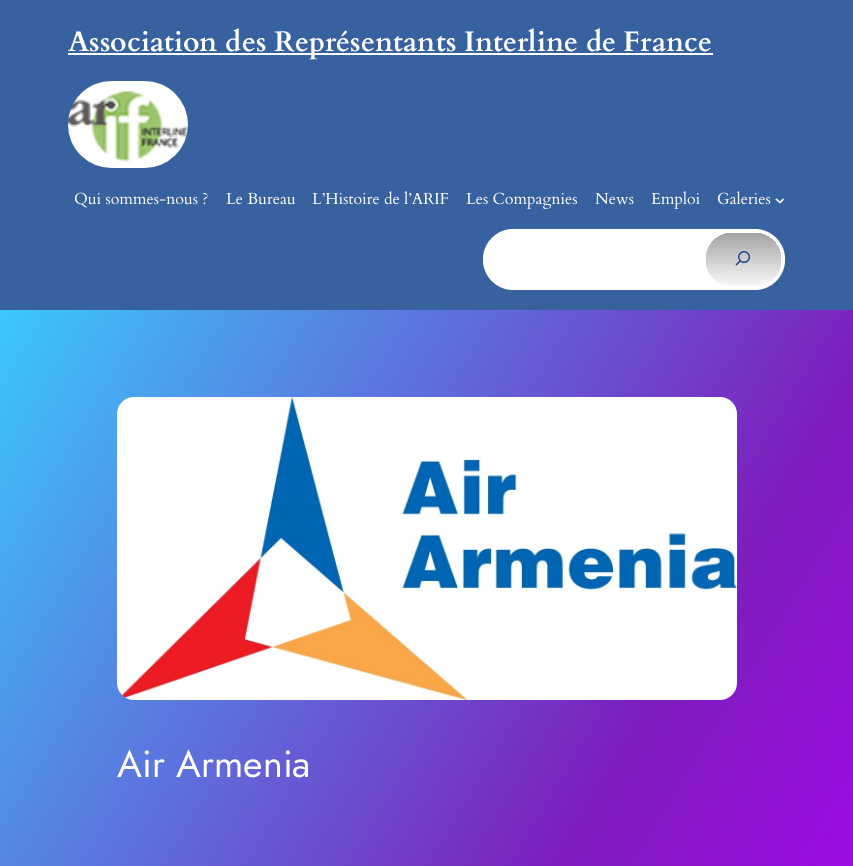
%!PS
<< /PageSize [853 866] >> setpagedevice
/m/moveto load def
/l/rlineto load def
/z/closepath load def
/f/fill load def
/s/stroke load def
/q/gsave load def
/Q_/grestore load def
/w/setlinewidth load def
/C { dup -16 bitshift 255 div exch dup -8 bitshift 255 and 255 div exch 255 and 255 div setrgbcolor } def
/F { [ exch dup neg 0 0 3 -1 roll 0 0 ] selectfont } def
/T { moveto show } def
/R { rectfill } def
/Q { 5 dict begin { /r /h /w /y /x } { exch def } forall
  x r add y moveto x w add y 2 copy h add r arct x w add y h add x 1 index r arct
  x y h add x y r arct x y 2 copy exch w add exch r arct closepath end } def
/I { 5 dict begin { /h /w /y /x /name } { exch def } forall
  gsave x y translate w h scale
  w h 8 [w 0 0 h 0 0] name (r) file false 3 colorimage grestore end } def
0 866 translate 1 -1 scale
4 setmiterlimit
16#FFFFFF C
0 0 853 866 R
q 0 310 m 853 0 l 0 556 l -853 0 l z clip newpath
<< /ShadingType 2 /ColorSpace /DeviceRGB /Coords [-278 463 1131 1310] /Extend [true true] /Function << /FunctionType 3 /Domain [0 1] /Functions [<< /FunctionType 2 /Domain [0 1] /C0 [.231 .796 1] /C1 [.231 .796 1] /N 1 >> << /FunctionType 2 /Domain [0 1] /C0 [.231 .796 1] /C1 [.494 .118 .741] /N 1 >> << /FunctionType 2 /Domain [0 1] /C0 [.494 .118 .741] /C1 [.706 0 1] /N 1 >> << /FunctionType 2 /Domain [0 1] /C0 [.706 0 1] /C1 [.792 .525 .267] /N 1 >>] /Bounds [.09 .56 .82] /Encode [0 1 0 1 0 1 0 1] >> >> shfill Q_
16#38629F C
0 0 853 310 R
16#FFFFFF C
68 53 645 2 R
/Cardo-Bold 28.4 F
(Association des Représentants Interline de France) 68 51 T
(1.rgb) 68 81 120 87 I
(2.rgb) 74 192 134 16 I
(3.rgb) 226 192 70 13 I
(4.rgb) 312 191 136 14 I
(5.rgb) 466 192 111 17 I
(6.rgb) 595 193 39 12 I
(7.rgb) 651 191 49 18 I
(8.rgb) 717 191 54 14 I
1.2 w
776 199 m 4 3.5 l 3.5 -3.5 l s
483 229 302 61 30.5 Q f
q 706 233 75 53 26.5 Q clip newpath
<< /ShadingType 2 /ColorSpace /DeviceRGB /Coords [744 233 744 286] /Extend [true true] /Function << /FunctionType 2 /Domain [0 1] /C0 [.643 .643 .643] /C1 [.976 .976 .976] /N 1 >> >> shfill Q_
(9.rgb) 735 251 16 15 I
(10.rgb) 117 397 620 303 I
/Jost-Regular 37.75 F
(Air Armenia) 117 777 T
showpage
